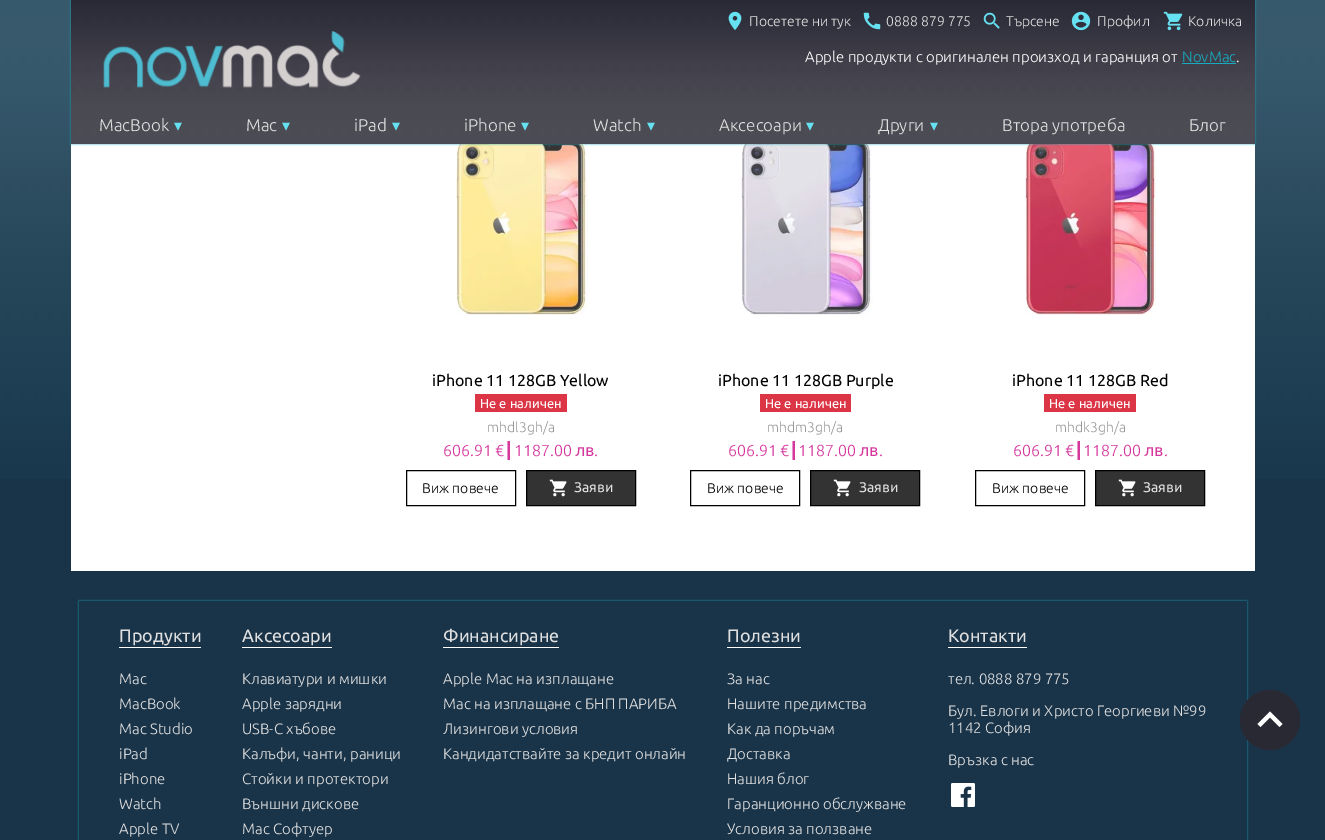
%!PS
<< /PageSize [1325 840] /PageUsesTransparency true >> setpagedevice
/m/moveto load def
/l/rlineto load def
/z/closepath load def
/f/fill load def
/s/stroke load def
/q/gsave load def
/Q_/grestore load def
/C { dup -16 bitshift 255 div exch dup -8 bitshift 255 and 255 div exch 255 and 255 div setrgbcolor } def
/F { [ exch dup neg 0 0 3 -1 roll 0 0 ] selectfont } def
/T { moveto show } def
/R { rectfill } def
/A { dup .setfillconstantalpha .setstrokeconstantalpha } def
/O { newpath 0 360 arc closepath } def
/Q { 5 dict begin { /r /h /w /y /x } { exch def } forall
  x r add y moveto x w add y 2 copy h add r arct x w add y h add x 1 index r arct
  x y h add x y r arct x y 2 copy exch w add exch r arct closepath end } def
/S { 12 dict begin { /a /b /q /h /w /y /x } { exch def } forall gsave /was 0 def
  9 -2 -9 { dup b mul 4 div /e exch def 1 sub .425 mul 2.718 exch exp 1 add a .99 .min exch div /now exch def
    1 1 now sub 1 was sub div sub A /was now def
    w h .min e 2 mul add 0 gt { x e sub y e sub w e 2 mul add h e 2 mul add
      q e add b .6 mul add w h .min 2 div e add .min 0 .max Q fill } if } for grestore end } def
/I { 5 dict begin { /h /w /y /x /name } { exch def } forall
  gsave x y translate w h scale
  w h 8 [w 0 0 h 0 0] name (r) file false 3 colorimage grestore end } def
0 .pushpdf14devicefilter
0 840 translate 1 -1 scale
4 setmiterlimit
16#193348 C
0 0 1325 840 R
(1.rgb) 0 0 1325 479 I
16#FFFFFF C
71 144 1184 427 R
(9.rgb) 456 144 132 171 I
(11.rgb) 741 144 132 171 I
(12.rgb) 1025 144 132 171 I
16#18AABE C
71 0 1184 144 0 1 1 S
(2.rgb) 71 0 1184 144 I
(3.rgb) 103 31 258 57 I
(4.rgb) 728 11 14 19 I
/Ubuntu-Light 14 F
16#E0E0E0 C
(Посетете ни тук) 749 26 T
(5.rgb) 863 12 18 18 I
(0888 879 775) 886 26 T
(6.rgb) 983 12 17 17 I
(Търсене) 1006 26 T
(7.rgb) 1071 11 20 20 I
(Профил) 1097 26 T
(8.rgb) 1163 11 20 20 I
(Количка) 1188 26 T
/Ubuntu-Light 15 F
16#FFFFFF C
(Apple продукти с оригинален произход и гаранция от) 805 62 T
16#18AABE C
(NovMac) 1182 62 T
16#FFFFFF C
(.) 1236 62 T
16#18AABE C
1182 63 54 1 R
/Ubuntu-Light 17 F
16#E0E0E0 C
(MacBook) 99 131 T
/DejaVuSans-Regular 16 F
16#66E1F2 C
(▾) 174 131 T
/Ubuntu-Light 17 F
16#E0E0E0 C
(Mac) 246 131 T
/DejaVuSans-Regular 16 F
16#66E1F2 C
(▾) 282 131 T
/Ubuntu-Light 17 F
16#E0E0E0 C
(iPad) 354 131 T
/DejaVuSans-Regular 16 F
16#66E1F2 C
(▾) 392 131 T
/Ubuntu-Light 17 F
16#E0E0E0 C
(iPhone) 464 131 T
/DejaVuSans-Regular 16 F
16#66E1F2 C
(▾) 521 131 T
/Ubuntu-Light 17 F
16#E0E0E0 C
(Watch) 593 131 T
/DejaVuSans-Regular 16 F
16#66E1F2 C
(▾) 647 131 T
/Ubuntu-Light 17 F
16#E0E0E0 C
(Аксесоари) 719 131 T
/DejaVuSans-Regular 16 F
16#66E1F2 C
(▾) 806 131 T
/Ubuntu-Light 17 F
16#E0E0E0 C
(Други) 878 131 T
/DejaVuSans-Regular 16 F
16#66E1F2 C
(▾) 930 131 T
/Ubuntu-Light 17 F
16#E0E0E0 C
(Втора употреба) 1002 131 T
(Блог) 1189 131 T
/Ubuntu-Regular 16 F
16#000000 C
(iPhone 11 128GB Yellow) 432 386 T
16#DC3545 C
475 394 92 18 R
/Ubuntu-Regular 13 F
16#FFFFFF C
(Не е наличен) 480 408 T
/Ubuntu-Light 14 F
16#999999 C
(mhdl3gh/a) 487 432 T
/Ubuntu-Light 16 F
16#D5379D C
443 456 m -1 0 32 (606.91 €) widthshow
/DejaVuSans-Regular 16 F
(┃) 504 456 T
/Ubuntu-Light 16 F
(1187.00) 514 456 T
/DejaVuSans-Regular 16 F
(лв) 575 456 T
/Ubuntu-Light 16 F
(.) 594 456 T
16#000000 C
406.5 470.5 109 35 rectstroke
/Ubuntu-Light 14 F
(Виж повече) 422 493 T
16#333333 C
526.5 470.5 m 109 0 l 0 35 l -109 0 l z q f Q_
16#000000 C
s
(10.rgb) 549 479 18 18 I
/Ubuntu-Regular 14 F
16#E0E0E0 C
(Заяви) 574 492 T
/Ubuntu-Regular 16 F
16#000000 C
(iPhone 11 128GB Purple) 718 386 T
16#DC3545 C
760 394 91 18 R
/Ubuntu-Regular 13 F
16#FFFFFF C
(Не е наличен) 765 408 T
/Ubuntu-Light 14 F
16#999999 C
(mhdm3gh/a) 767 432 T
/Ubuntu-Light 16 F
16#D5379D C
728 456 m -1 0 32 (606.91 €) widthshow
/DejaVuSans-Regular 16 F
(┃) 789 456 T
/Ubuntu-Light 16 F
(1187.00) 798 456 T
/DejaVuSans-Regular 16 F
(лв) 859 456 T
/Ubuntu-Light 16 F
(.) 879 456 T
16#000000 C
690.5 470.5 109 35 rectstroke
/Ubuntu-Light 14 F
(Виж повече) 707 493 T
16#333333 C
810.5 470.5 m 109 0 l 0 35 l -109 0 l z q f Q_
16#000000 C
s
(10.rgb) 833 479 18 18 I
/Ubuntu-Regular 14 F
16#E0E0E0 C
(Заяви) 859 492 T
/Ubuntu-Regular 16 F
16#000000 C
(iPhone 11 128GB Red) 1012 386 T
16#DC3545 C
1044 394 92 18 R
/Ubuntu-Regular 13 F
16#FFFFFF C
(Не е наличен) 1049 408 T
/Ubuntu-Light 14 F
16#999999 C
(mhdk3gh/a) 1055 432 T
/Ubuntu-Light 16 F
16#D5379D C
1013 456 m -1 0 32 (606.91 €) widthshow
/DejaVuSans-Regular 16 F
(┃) 1074 456 T
/Ubuntu-Light 16 F
(1187.00) 1083 456 T
/DejaVuSans-Regular 16 F
(лв) 1144 456 T
/Ubuntu-Light 16 F
(.) 1164 456 T
16#000000 C
975.5 470.5 109 35 rectstroke
/Ubuntu-Light 14 F
(Виж повече) 992 493 T
16#333333 C
1095.5 470.5 m 109 0 l 0 35 l -109 0 l z q f Q_
16#000000 C
s
(10.rgb) 1118 479 18 18 I
/Ubuntu-Regular 14 F
16#E0E0E0 C
(Заяви) 1143 492 T
q
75 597 m 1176 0 l 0 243 l -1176 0 l z 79 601 m 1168 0 l 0 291 l -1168 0 l z eoclip newpath
16#18AABE C
79 601 1168 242 0 1 1 S
Q_
/Ubuntu-Regular 18 F
(Продукти) 119 642 T
16#FFFFFF C
119 647 82 1 R
/Ubuntu-Light 15 F
16#E0E0E0 C
(Mac) 119 684 T
(MacBook) 119 709 T
(Mac Studio) 119 734 T
(iPad) 119 759 T
(iPhone) 119 784 T
(Watch) 119 809 T
(Apple TV) 119 834 T
/Ubuntu-Regular 18 F
(Аксесоари) 242 642 T
16#FFFFFF C
242 647 90 1 R
/Ubuntu-Light 15 F
16#E0E0E0 C
(Клавиатури и мишки) 242 684 T
(Apple зарядни) 242 709 T
(USB-C хъбове) 242 734 T
(Калъфи, чанти, раници) 242 759 T
(Стойки и протектори) 242 784 T
(Външни дискове) 242 809 T
(Mac Софтуер) 242 834 T
/Ubuntu-Regular 18 F
(Финансиране) 443 642 T
16#FFFFFF C
443 647 116 1 R
/Ubuntu-Light 15 F
16#E0E0E0 C
(Apple Mac на изплащане) 443 684 T
(Mac на изплащане с БНП ПАРИБА) 443 709 T
(Лизингови условия) 443 734 T
(Кандидатствайте за кредит онлайн) 443 759 T
/Ubuntu-Regular 18 F
(Полезни) 727 642 T
16#FFFFFF C
727 647 74 1 R
/Ubuntu-Light 15 F
16#E0E0E0 C
(За нас) 727 684 T
(Нашите предимства) 727 709 T
(Как да поръчам) 727 734 T
(Доставка) 727 759 T
(Нашия блог) 727 784 T
(Гаранционно обслужване) 727 809 T
(Условия за ползване) 727 834 T
/Ubuntu-Regular 18 F
(Контакти) 948 642 T
16#FFFFFF C
948 647 79 1 R
/Ubuntu-Light 15 F
16#E0E0E0 C
(тел. 0888 879 775) 948 684 T
(Бул. Евлоги и Христо Георгиеви №99) 948 716 T
(1142 София) 948 733 T
(Връзка с нас) 948 765 T
(13.rgb) 951 783 24 24 I
16#292933 C
1270 720 30 O f
16#FFFFFF C
1260.5 727 m -3 -3 l 12.5 -12.5 l 12.5 12.5 l -3 3 l -9.5 -9.5 l z f
.poppdf14devicefilter showpage
